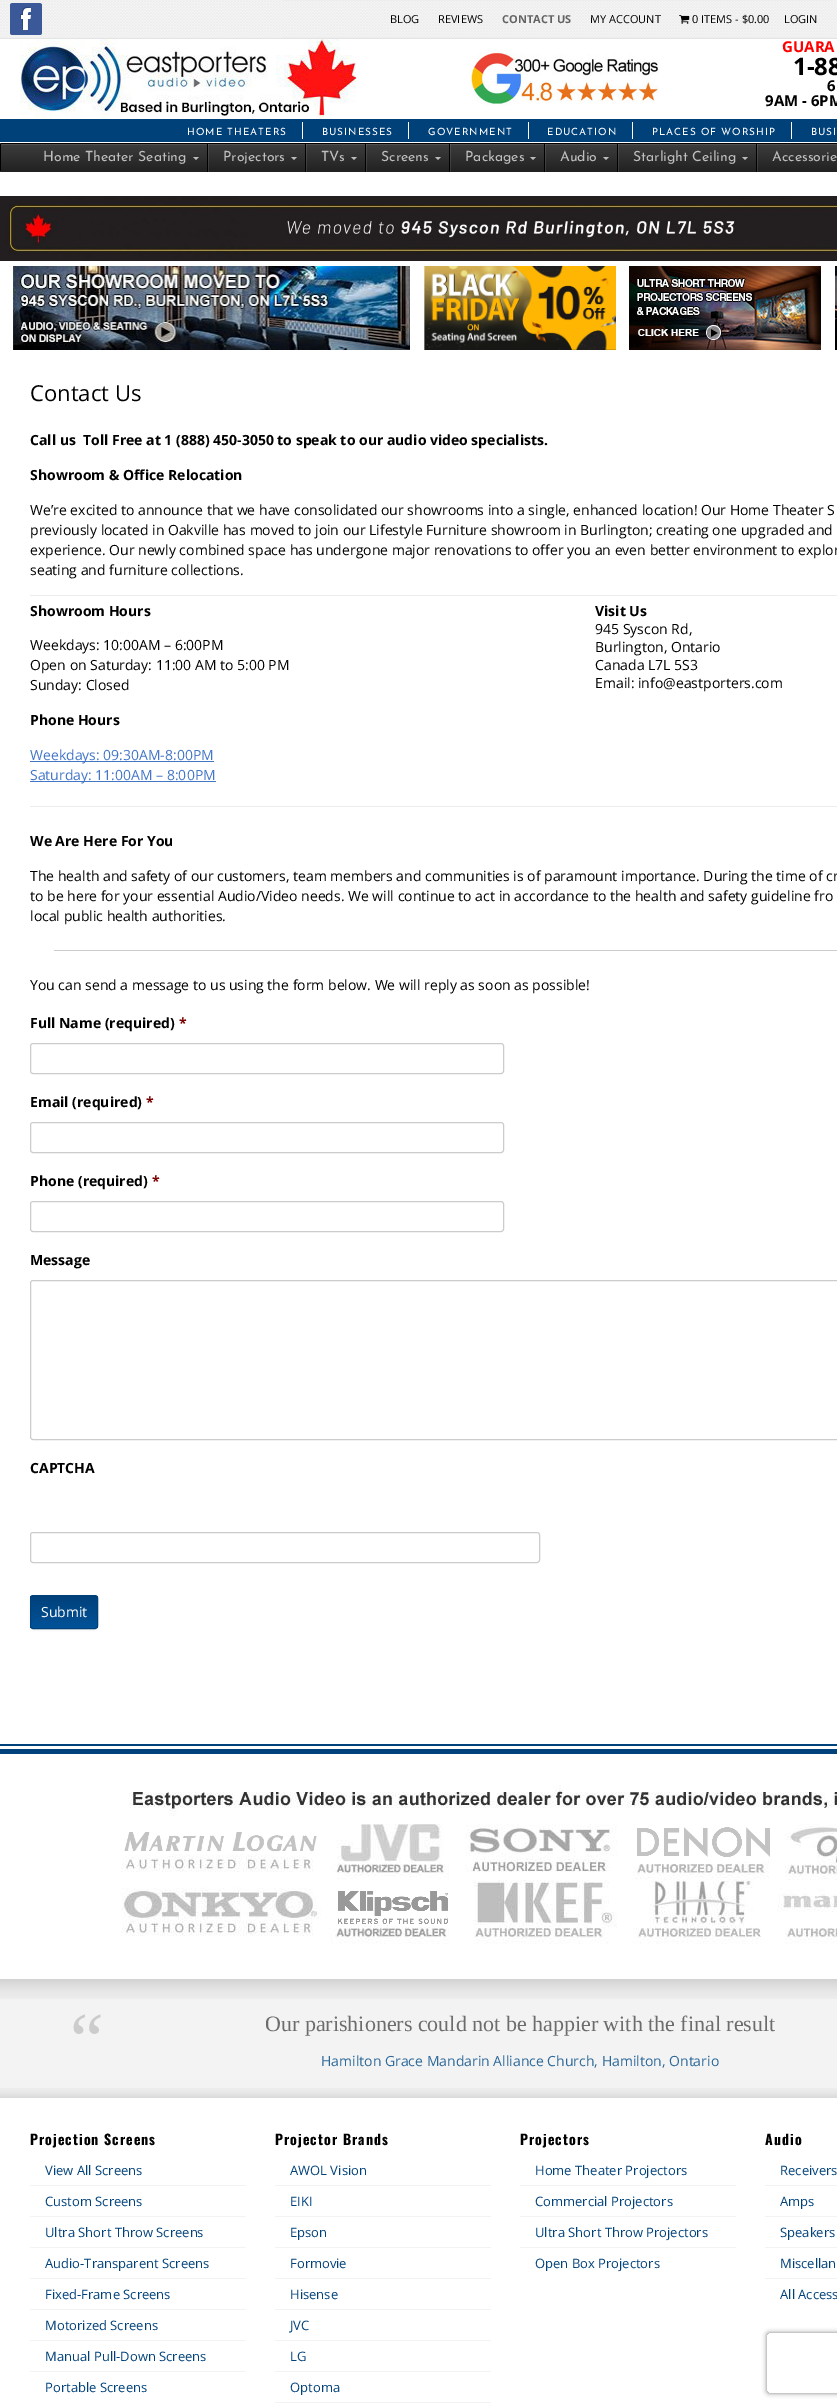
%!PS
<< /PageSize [837 2407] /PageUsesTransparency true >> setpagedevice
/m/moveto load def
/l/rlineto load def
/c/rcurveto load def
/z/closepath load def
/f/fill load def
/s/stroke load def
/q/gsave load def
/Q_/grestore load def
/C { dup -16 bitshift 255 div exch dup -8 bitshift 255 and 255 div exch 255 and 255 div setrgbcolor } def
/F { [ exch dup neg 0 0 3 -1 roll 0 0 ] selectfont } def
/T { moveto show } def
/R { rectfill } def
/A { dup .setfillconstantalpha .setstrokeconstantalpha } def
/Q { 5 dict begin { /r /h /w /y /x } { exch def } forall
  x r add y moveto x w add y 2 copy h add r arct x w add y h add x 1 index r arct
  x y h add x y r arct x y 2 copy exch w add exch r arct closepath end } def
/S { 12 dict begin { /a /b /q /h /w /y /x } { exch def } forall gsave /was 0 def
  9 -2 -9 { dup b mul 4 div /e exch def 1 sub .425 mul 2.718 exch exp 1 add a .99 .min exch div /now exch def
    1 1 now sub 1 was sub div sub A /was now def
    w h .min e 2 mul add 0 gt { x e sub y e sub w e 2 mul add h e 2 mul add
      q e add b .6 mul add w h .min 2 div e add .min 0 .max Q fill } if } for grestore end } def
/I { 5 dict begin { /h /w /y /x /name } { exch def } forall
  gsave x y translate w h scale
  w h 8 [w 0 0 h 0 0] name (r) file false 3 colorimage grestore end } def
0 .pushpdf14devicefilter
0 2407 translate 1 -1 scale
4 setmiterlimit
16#FFFFFF C
0 0 837 2407 R
(1.rgb) 0 0 837 38 I
16#E4E4E4 C
0 38 837 1 R
(2.rgb) 10 3 32 32 I
16#EDEDED C
283 0 550 1 R
283 37 550 1 R
/OpenSans-Regular 11 F
16#000000 C
(BLOG) 390 23 T
(REVIEWS) 438 23 T
/OpenSans-Bold 11 F
16#636363 C
(CONTACT US) 502 23 T
/OpenSans-Regular 11 F
16#000000 C
(MY ACCOUNT) 590 23 T
(3.rgb) 679 15 11 9 I
(0 ITEMS - $0.00) 692 23 T
(LOGIN) 784 23 T
(4.rgb) 20 39 338 80 I
(5.rgb) 469 50 190 56 I
/OpenSans-Bold 15 F
16#FF0000 C
(GUARA) 782 52 T
/OpenSans-Bold 24 F
16#000000 C
(1-88) 793 75 T
/OpenSans-Bold 15 F
(6) 827 91 T
(9AM - 6PM) 765 106 T
16#00417A C
0 119 837 23 R
16#FFFFFF C
302 122 1 17 R
/JosefinSans-Regular 10 F
187 135 m 1 0 (HOME THEATERS) ashow
408 122 1 17 R
322 135 m 1 0 (BUSINESSES) ashow
528 122 1 17 R
428 135 m 1 0 (GOVERNMENT) ashow
632 122 1 17 R
547 135 m 1 0 (EDUCATION) ashow
791 122 1 17 R
652 135 m 1 0 (PLACES OF WORSHIP) ashow
811 135 m 1 0 (BUSI) ashow
16#333333 C
0 143 2 29 R
q 2 144 m 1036 0 l 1 0 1 0 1 1 c 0 25 l 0 1 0 2 -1 2 c -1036 0 l -1 0 -1 -1 -1 -2 c 0 -25 l 0 -1 0 -1 1 -1 c z clip newpath
<< /ShadingType 2 /ColorSpace /DeviceRGB /Coords [520 144 520 172] /Extend [true true] /Function << /FunctionType 2 /Domain [0 1] /C0 [.239 .239 .239] /C1 [.129 .129 .129] /N 1 >> >> shfill Q_
16#505050 C
2 145 m 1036 0 l 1 0 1 0 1 1 c 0 -1 l -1 -1 l -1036 0 l -1 1 l 0 1 l 0 -1 0 -1 1 -1 c z f
16#000000 C
1 143 836 1 R
0 144 1 27 R
/JosefinSans-Regular 14 F
16#BFBFBF C
(Home Theater Seating) 43 161 T
16#BBBBBB C
193 157 m 6 0 l -3 3 l z f
0.1 A
16#FFFFFF C
208 144 1 28 R
1 A
16#000000 C
207 144 1 28 R
16#BFBFBF C
(Projectors) 223 161 T
16#BBBBBB C
291 157 m 6 0 l -3 3 l z f
0.1 A
16#FFFFFF C
306 144 1 28 R
1 A
16#000000 C
305 144 1 28 R
16#BFBFBF C
(TVs) 321 161 T
16#BBBBBB C
351 157 m 6 0 l -3 3 l z f
0.1 A
16#FFFFFF C
366 144 1 28 R
1 A
16#000000 C
365 144 1 28 R
16#BFBFBF C
(Screens) 381 161 T
16#BBBBBB C
435 157 m 6 0 l -3 3 l z f
0.1 A
16#FFFFFF C
450 144 1 28 R
1 A
16#000000 C
449 144 1 28 R
16#BFBFBF C
(Packages) 465 161 T
16#BBBBBB C
530 157 m 6 0 l -3 3 l z f
0.1 A
16#FFFFFF C
545 144 1 28 R
1 A
16#000000 C
544 144 1 28 R
16#BFBFBF C
(Audio) 560 161 T
16#BBBBBB C
603 157 m 6 0 l -3 3 l z f
0.1 A
16#FFFFFF C
618 144 1 28 R
1 A
16#000000 C
617 144 1 28 R
16#BFBFBF C
(Starlight Ceiling) 633 161 T
16#BBBBBB C
742 157 m 6 0 l -3 3 l z f
0.1 A
16#FFFFFF C
757 144 1 28 R
1 A
16#000000 C
756 144 1 28 R
16#BFBFBF C
(Accessorie) 772 161 T
(6.rgb) 0 196 837 65 I
(7.rgb) 13 266 397 84 I
(8.rgb) 424 266 192 84 I
(9.rgb) 629 266 192 84 I
(10.rgb) 835 266 2 84 I
/OpenSans-Regular 22 F
16#000000 C
(Contact Us) 30 401 T
/OpenSans-Bold 14 F
(Call us  Toll Free at 1 \(888\) 450-3050 to speak to our audio video specialists.) 30 445 T
(Showroom & Office Relocation) 30 480 T
/OpenSans-Regular 14 F
(We’re excited to announce that we have consolidated our showrooms into a single, enhanced location! Our Home Theater S) 30 515 T
(previously located in Oakville has moved to join our Lifestyle Furniture showroom in Burlington; creating one upgraded and) 30 535 T
(experience. Our newly combined space has undergone major renovations to offer you an even better environment to explor) 30 555 T
(seating and furniture collections.) 30 575 T
16#EDEDED C
30 806 807 1 R
/OpenSans-Bold 14 F
16#000000 C
(Showroom Hours) 30 616 T
/OpenSans-Regular 14 F
(Weekdays: 10:00AM – 6:00PM) 30 650 T
(Open on Saturday: 11:00 AM to 5:00 PM) 30 670 T
(Sunday: Closed) 30 690 T
/OpenSans-Bold 14 F
(Phone Hours) 30 725 T
16#4276C6 C
30 761 184 1 R
/OpenSans-Regular 14 F
(Weekdays: 09:30AM-8:00PM) 30 760 T
30 781 186 1 R
(Saturday: 11:00AM – 8:00PM) 30 780 T
16#EDEDED C
30 595 807 1 R
/OpenSans-Bold 14 F
16#000000 C
(Visit Us) 595 616 T
/OpenSans-Regular 14 F
(945 Syscon Rd,) 595 634 T
(Burlington, Ontario) 595 652 T
(Canada L7L 5S3) 595 670 T
(Email: info@eastporters.com) 595 688 T
/OpenSans-Bold 14 F
(We Are Here For You) 30 846 T
/OpenSans-Regular 14 F
(The health and safety of our customers, team members and communities is of paramount importance. During the time of cr) 30 881 T
(to be here for your essential Audio/Video needs. We will continue to act in accordance to the health and safety guideline fro) 30 901 T
(local public health authorities.) 30 921 T
16#CCCCCC C
54 950 783 1 R
16#000000 C
(You can send a message to us using the form below. We will reply as soon as possible!) 30 990 T
/OpenSans-Bold 14 F
(Full Name \(required\)) 30 1028 T
16#790000 C
(*) 179 1028 T
16#CCCCCC C
30.5 1043.5 473 30 2.5 Q s
16#000000 C
(Email \(required\)) 30 1107 T
16#790000 C
(*) 146 1107 T
16#CCCCCC C
30.5 1122.5 473 30 2.5 Q s
16#000000 C
(Phone \(required\)) 30 1186 T
16#790000 C
(*) 152 1186 T
16#CCCCCC C
30.5 1201.5 473 30 2.5 Q s
16#000000 C
(Message) 30 1265 T
16#CCCCCC C
30.5 1280.5 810 159 2.5 Q s
16#000000 C
(CAPTCHA) 30 1473 T
16#CCCCCC C
30.5 1532.5 509 30 2.5 Q s
16#404040 C
30 1596 68 34 3 1 .1 S
q
30 1595 68 34 3 Q clip newpath
q 30 1596 m 68 0 l 0 32 l -68 0 l z clip newpath
<< /ShadingType 2 /ColorSpace /DeviceRGB /Coords [64 1596 64 1628] /Extend [true true] /Function << /FunctionType 2 /Domain [0 1] /C0 [0 .255 .478] /C1 [.008 .322 .6] /N 1 >> >> shfill Q_
Q_
16#00417A C
30.5 1595.5 67 33 2.5 Q s
/OpenSans-Regular 14 F
16#FFFFFF C
(Submit) 41 1617 T
16#00427B C
0 1744 837 2 R
0 1749 837 5 R
(11.rgb) 121 1785 716 159 I
16#F3F3F3 C
0 1979 837 119 R
(12.rgb) 0 1979 837 20 I
(13.rgb) 0 2088 837 10 I
/LiberationSerif-Regular 76 F
16#CCCCCC C
(“) 70 2065 T
/LiberationSerif-Regular 22 F
16#6C6C6C C
(Our parishioners could not be happier with the final result) 265 2031 T
/OpenSans-Regular 14 F
16#2C6899 C
(Hamilton Grace Mandarin Alliance Church, Hamilton, Ontario) 321 2066 T
/Oswald-Bold 14 F
16#000000 C
30 2145 m 1 0 (Projection Screens) ashow
16#F3F3F3 C
30 2185 216 1 R
/OpenSans-Regular 13 F
16#004179 C
(View All Screens) 45 2175 T
16#F3F3F3 C
30 2216 216 1 R
16#004179 C
(Custom Screens) 45 2206 T
16#F3F3F3 C
30 2247 216 1 R
16#004179 C
(Ultra Short Throw Screens) 45 2237 T
16#F3F3F3 C
30 2278 216 1 R
16#004179 C
(Audio-Transparent Screens) 45 2268 T
16#F3F3F3 C
30 2309 216 1 R
16#004179 C
(Fixed-Frame Screens) 45 2299 T
16#F3F3F3 C
30 2340 216 1 R
16#004179 C
(Motorized Screens) 45 2330 T
16#F3F3F3 C
30 2371 216 1 R
16#004179 C
(Manual Pull-Down Screens) 45 2361 T
(Portable Screens) 45 2392 T
/Oswald-Bold 14 F
16#000000 C
275 2145 m 1 0 (Projector Brands) ashow
16#F3F3F3 C
275 2185 216 1 R
/OpenSans-Regular 13 F
16#004179 C
(AWOL Vision) 290 2175 T
16#F3F3F3 C
275 2216 216 1 R
16#004179 C
(EIKI) 290 2206 T
16#F3F3F3 C
275 2247 216 1 R
16#004179 C
(Epson) 290 2237 T
16#F3F3F3 C
275 2278 216 1 R
16#004179 C
(Formovie) 290 2268 T
16#F3F3F3 C
275 2309 216 1 R
16#004179 C
(Hisense) 290 2299 T
16#F3F3F3 C
275 2340 216 1 R
16#004179 C
(JVC) 290 2330 T
16#F3F3F3 C
275 2371 216 1 R
16#004179 C
(LG) 290 2361 T
16#F3F3F3 C
275 2402 216 1 R
16#004179 C
(Optoma) 290 2392 T
/Oswald-Bold 14 F
16#000000 C
520 2145 m 1 0 (Projectors) ashow
16#F3F3F3 C
520 2185 216 1 R
/OpenSans-Regular 13 F
16#004179 C
(Home Theater Projectors) 535 2175 T
16#F3F3F3 C
520 2216 216 1 R
16#004179 C
(Commercial Projectors) 535 2206 T
16#F3F3F3 C
520 2247 216 1 R
16#004179 C
(Ultra Short Throw Projectors) 535 2237 T
(Open Box Projectors) 535 2268 T
/Oswald-Bold 14 F
16#000000 C
765 2145 m 1 0 (Audio) ashow
16#F3F3F3 C
765 2185 72 1 R
/OpenSans-Regular 13 F
16#004179 C
(Receivers) 780 2175 T
16#F3F3F3 C
765 2216 72 1 R
16#004179 C
(Amps) 780 2206 T
16#F3F3F3 C
765 2247 72 1 R
16#004179 C
(Speakers) 780 2237 T
16#F3F3F3 C
765 2278 72 1 R
16#004179 C
(Miscellan) 780 2268 T
(All Access) 780 2299 T
q
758 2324 m 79 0 l 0 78 l -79 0 l z 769 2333 m 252 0 l 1 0 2 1 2 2 c 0 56 l 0 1 -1 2 -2 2 c -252 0 l -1 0 -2 -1 -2 -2 c 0 -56 l 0 -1 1 -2 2 -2 c z eoclip newpath
16#808080 C
767 2333 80 60 2 2.5 1 S
Q_
.poppdf14devicefilter showpage
